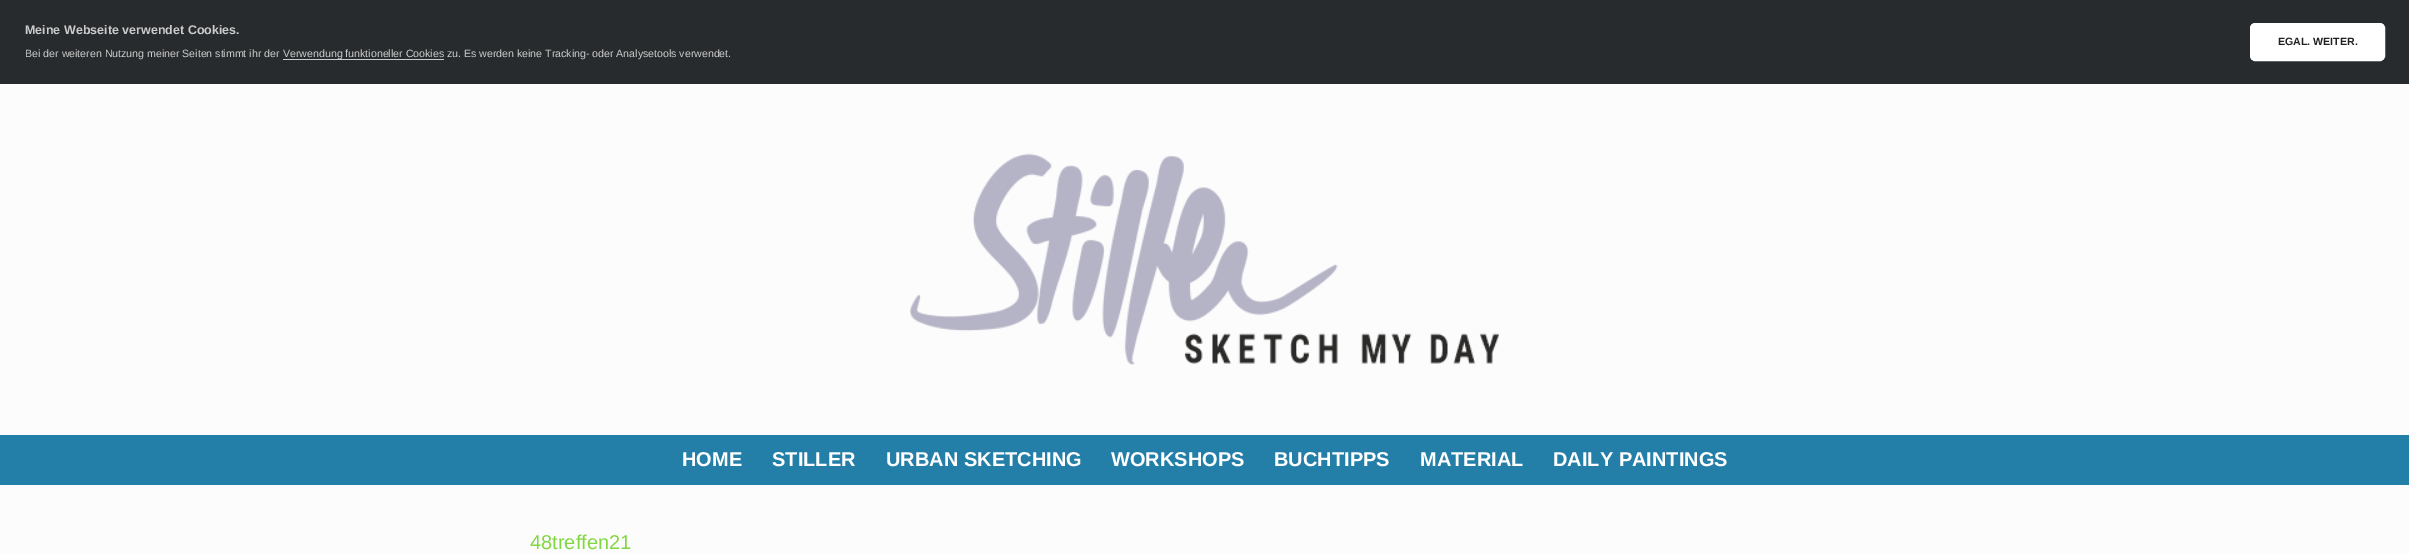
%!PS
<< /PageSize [2409 554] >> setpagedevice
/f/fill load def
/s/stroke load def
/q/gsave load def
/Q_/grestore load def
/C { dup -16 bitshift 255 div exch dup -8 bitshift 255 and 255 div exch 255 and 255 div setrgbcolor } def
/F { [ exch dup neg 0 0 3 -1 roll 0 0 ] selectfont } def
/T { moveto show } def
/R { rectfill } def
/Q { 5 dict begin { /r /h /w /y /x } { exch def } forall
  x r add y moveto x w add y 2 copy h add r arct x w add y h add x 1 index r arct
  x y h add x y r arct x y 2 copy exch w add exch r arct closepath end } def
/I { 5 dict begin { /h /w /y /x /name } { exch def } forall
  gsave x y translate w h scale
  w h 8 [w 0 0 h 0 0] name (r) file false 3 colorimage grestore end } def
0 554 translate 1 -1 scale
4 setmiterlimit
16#FCFCFC C
0 0 2409 554 R
16#282B2D C
0 0 2409 84 R
/LiberationSans-Bold 12.5 F
16#CCCCCC C
(Meine Webseite verwendet Cookies.) 25 34 T
/LiberationSans-Regular 10.6 F
(Bei der weiteren Nutzung meiner Seiten stimmt ihr der) 25 57 T
283 59 161 1 R
(Verwendung funktioneller Cookies zu. Es werden keine Tracking- oder Analysetools verwendet.) 283 57 T
16#FFFFFF C
2250.5 23.5 134 37 4.5 Q q f Q_
s
/LiberationSans-Bold 10.6 F
16#222222 C
(EGAL. WEITER.) 2278 45 T
(1.rgb) 910 153 590 212 I
16#237EA8 C
0 435 2409 50 R
/LiberationSans-Bold 20 F
16#FFFFFF C
(HOME) 682 466 T
(STILLER) 772 466 T
(URBAN SKETCHING) 886 466 T
(WORKSHOPS) 1111 466 T
(BUCHTIPPS) 1274 466 T
(MATERIAL) 1420 466 T
(DAILY PAINTINGS) 1553 466 T
/LiberationSans-Regular 20 F
16#81D742 C
(48treffen21) 530 549 T
showpage
